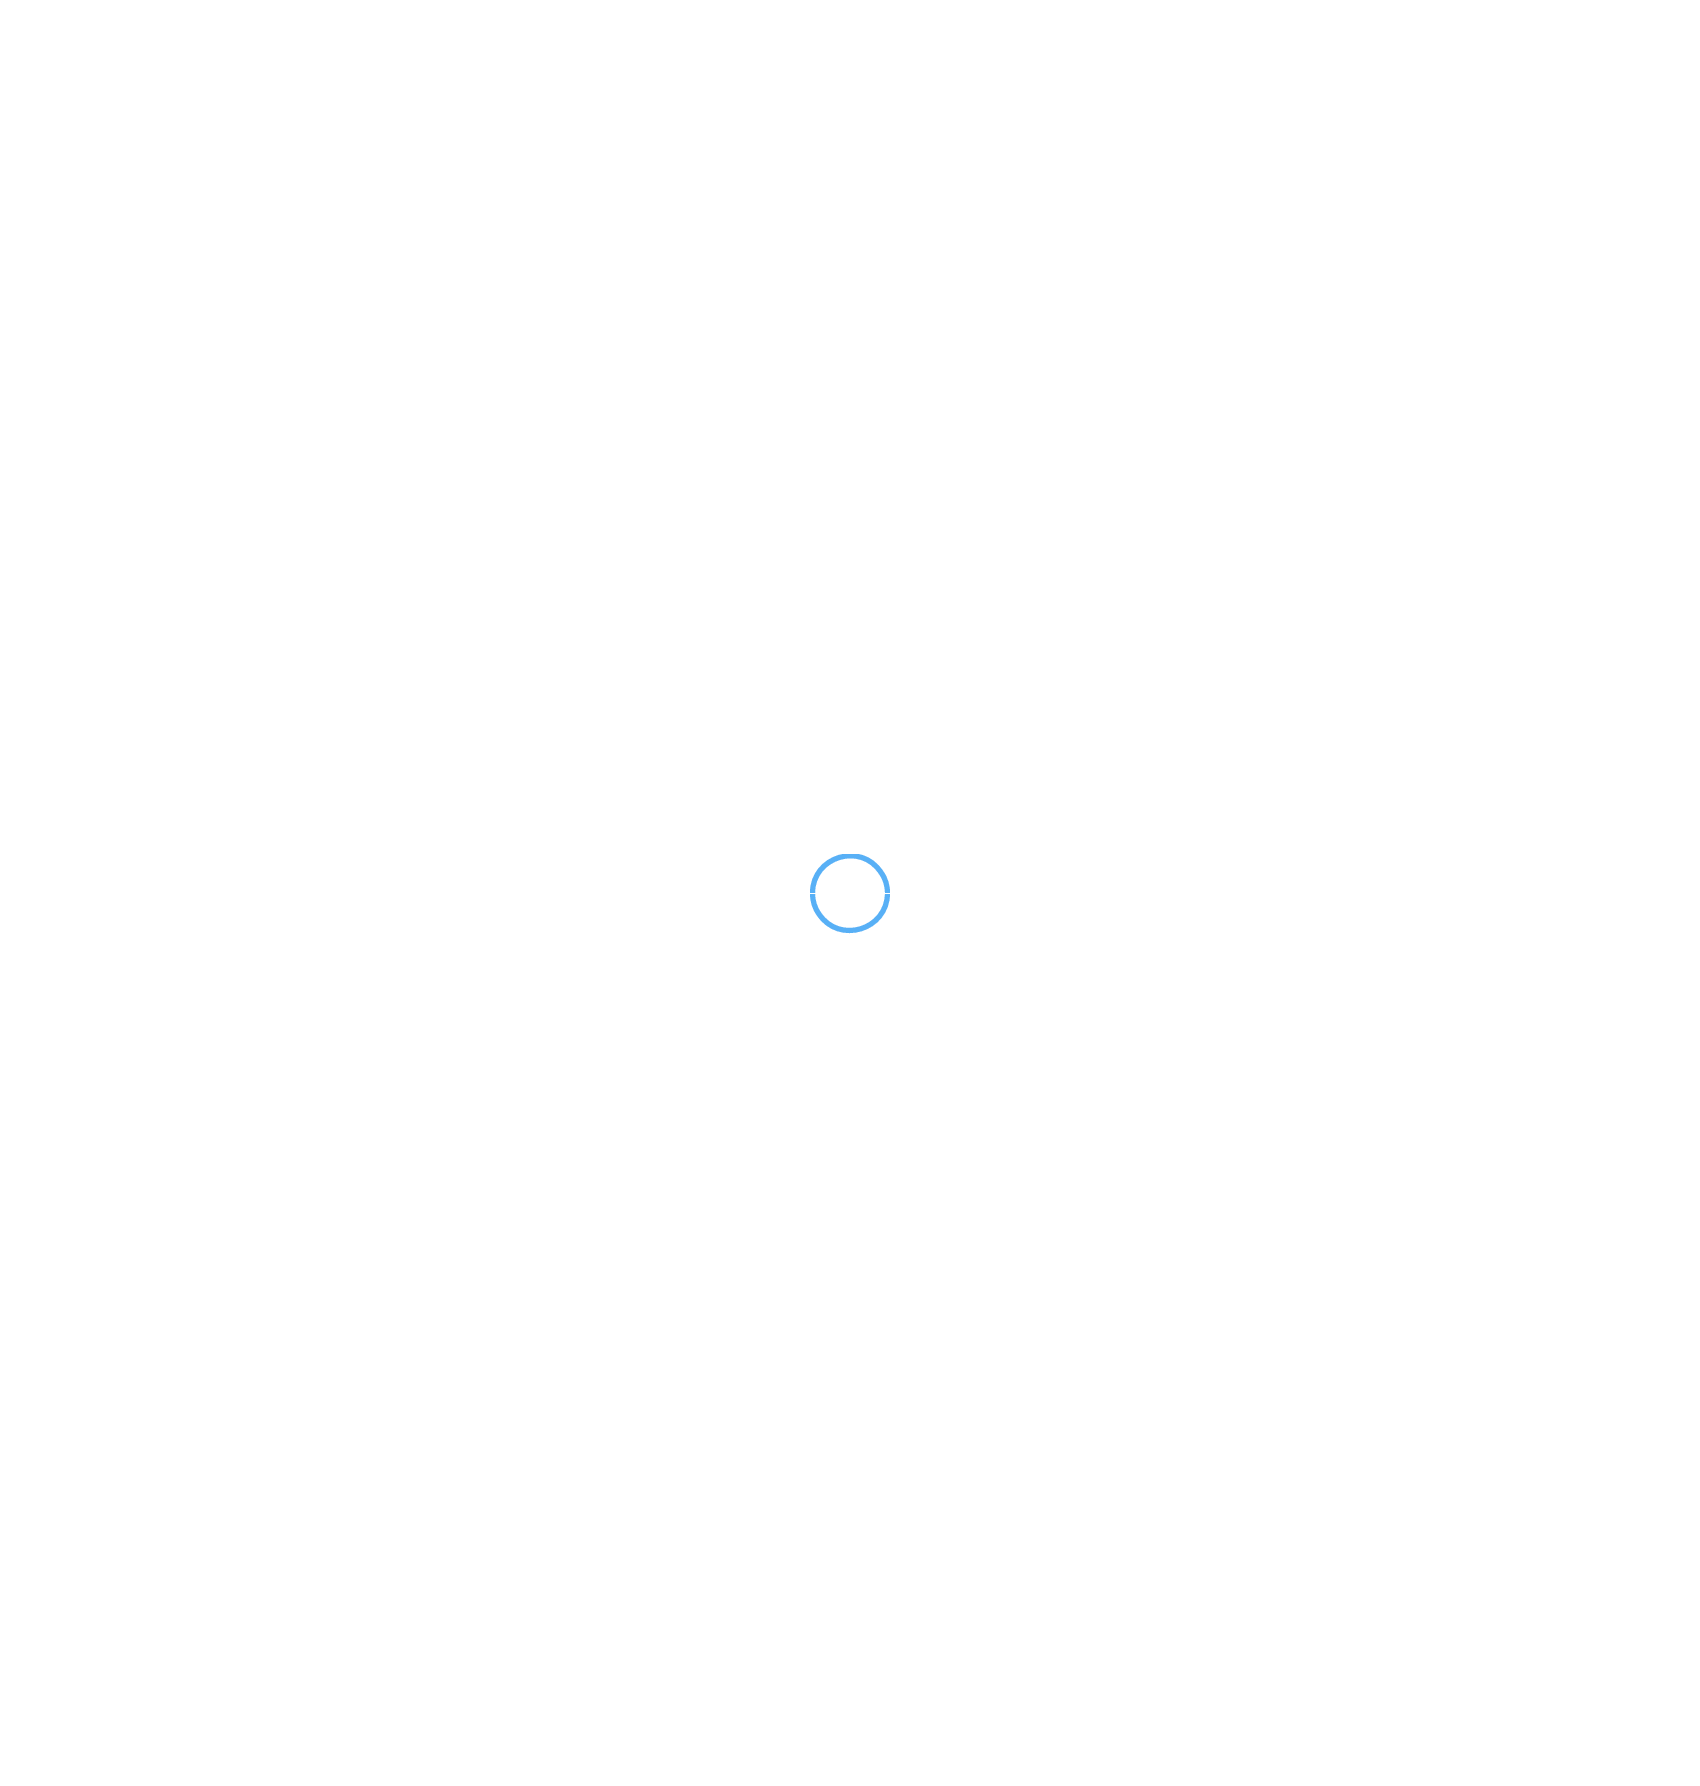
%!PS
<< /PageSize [1700 1786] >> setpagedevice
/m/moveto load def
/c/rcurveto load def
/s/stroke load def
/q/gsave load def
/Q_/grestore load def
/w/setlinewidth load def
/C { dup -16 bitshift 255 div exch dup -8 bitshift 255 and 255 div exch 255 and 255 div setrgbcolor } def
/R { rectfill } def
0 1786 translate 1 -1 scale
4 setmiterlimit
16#FFFFFF C
0 0 1700 1786 R
q
810 854 80 40 rectclip
16#58B0F6 C
5 w
812.5 893 m 0 -36.5 48.5 -51.5 68.5 -20.5 c 4.5 6 6.5 13.5 6.5 20.5 c s
Q_
q
810 894 80 40 rectclip
16#58B0F6 C
5 w
887.5 893 m 0 37 -48.5 51.5 -68.5 21 c -4.5 -6 -6.5 -13.5 -6.5 -21 c s
Q_
showpage
